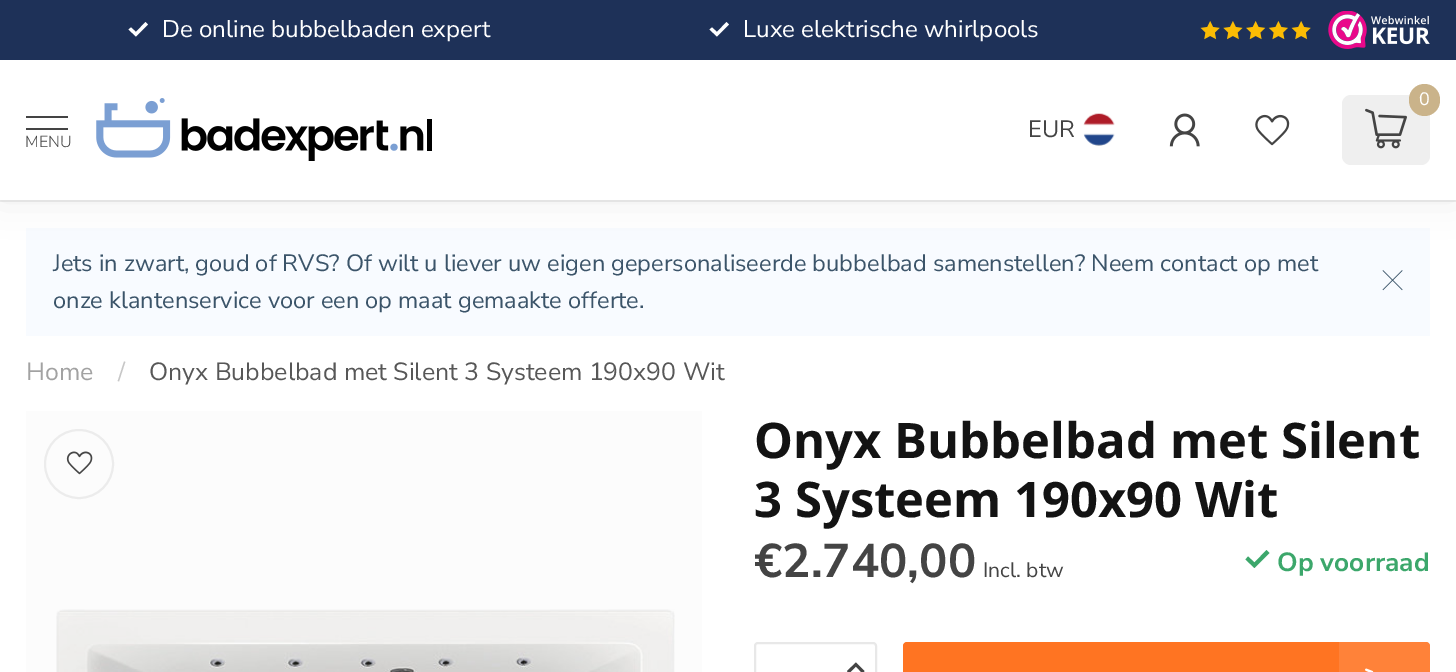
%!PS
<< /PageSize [1456 672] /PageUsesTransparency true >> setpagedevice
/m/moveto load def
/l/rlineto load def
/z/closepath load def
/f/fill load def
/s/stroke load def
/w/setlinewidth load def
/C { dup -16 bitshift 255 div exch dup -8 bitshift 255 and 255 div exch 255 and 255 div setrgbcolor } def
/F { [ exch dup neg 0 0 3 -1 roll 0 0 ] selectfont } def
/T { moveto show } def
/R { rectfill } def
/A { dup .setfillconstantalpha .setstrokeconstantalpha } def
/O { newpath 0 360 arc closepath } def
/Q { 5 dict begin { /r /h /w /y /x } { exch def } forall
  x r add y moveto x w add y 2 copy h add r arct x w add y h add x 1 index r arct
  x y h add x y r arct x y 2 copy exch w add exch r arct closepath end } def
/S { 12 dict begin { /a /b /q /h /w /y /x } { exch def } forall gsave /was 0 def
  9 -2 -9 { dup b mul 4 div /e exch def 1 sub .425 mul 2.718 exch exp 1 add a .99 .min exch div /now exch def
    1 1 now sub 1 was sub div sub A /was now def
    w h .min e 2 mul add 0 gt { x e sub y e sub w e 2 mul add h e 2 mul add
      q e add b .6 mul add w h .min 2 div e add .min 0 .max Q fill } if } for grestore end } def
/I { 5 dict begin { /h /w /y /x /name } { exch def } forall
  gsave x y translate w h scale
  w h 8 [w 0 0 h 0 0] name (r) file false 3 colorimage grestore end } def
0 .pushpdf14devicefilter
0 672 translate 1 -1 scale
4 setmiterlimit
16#FFFFFF C
0 0 1456 672 R
16#FCFCFC C
26 411 676 261 R
16#EEEEEE C
0 200 1456 2 R
16#F8FBFF C
26 228 1404 108 R
16#000000 C
0 0 1456 200 0 17.5 .07 S
16#FFFFFF C
0 60 1456 140 R
16#1E3158 C
0 0 1456 60 R
16#FFFFFF C
136 36.5 m -7.5 -7 l 2.5 -2 l 5 4.5 l 9.5 -10 l 2.5 2.5 l z f
/NunitoSans-Regular 24.1 F
(De online bubbelbaden expert) 162 37 T
717 36.5 m -7.5 -7 l 2.5 -2 l 5 4.5 l 9.5 -10 l 2.5 2.5 l z f
(Luxe elektrische whirlpools) 743 37 T
(1.rgb) 1200 21 20 19 I
(2.rgb) 1223 21 20 19 I
(3.rgb) 1246 21 20 19 I
(4.rgb) 1268 21 20 19 I
(1.rgb) 1291 21 20 19 I
(5.rgb) 1328 11 102 38 I
16#EFEFEF C
1342 95 88 70 9 Q f
16#CAB38A C
1409 84 31 32 15.5 Q f
/NunitoSans-Regular 18 F
16#FFFFFF C
(0) 1419 105 T
(6.rgb) 1365 108 42 41 I
/NunitoSans-Regular 23.62 F
16#444444 C
(EUR) 1028 137 T
(7.rgb) 1083 113 32 33 I
(8.rgb) 1169 113 31 34 I
(9.rgb) 1255 114 35 32 I
26 116 42 2 R
26 128 42 2 R
/NunitoSans-Light 16 F
(MENU) 25 147 T
(10.rgb) 96 98 336 63 I
/NunitoSans-Regular 23.62 F
16#3B5469 C
(Jets in zwart, goud of RVS? Of wilt u liever uw eigen gepersonaliseerde bubbelbad samenstellen? Neem contact op met) 53 271 T
(onze klantenservice voor een op maat gemaakte offerte.) 53 308 T
(11.rgb) 1382 270 21 21 I
/NunitoSans-Regular 24.9 F
16#A2A2A2 C
(Home) 26 380 T
16#C7C7C7 C
(/) 118 380 T
16#575757 C
(Onyx Bubbelbad met Silent 3 Systeem 190x90 Wit) 149 380 T
16#ECECEC C
2 w
79 464 34 O s
(12.rgb) 66 451 27 24 I
(13.rgb) 56 609 619 63 I
/OpenSans-Bold 49 F
16#131313 C
(Onyx Bubbelbad met Silent) 754 458 T
(3 Systeem 190x90 Wit) 754 517 T
/NunitoSans-Bold 47.25 F
16#444444 C
(€2.740,00) 754 577 T
/NunitoSans-Regular 21 F
(Incl. btw) 983 577 T
16#3CA76B C
1254.5 568 m -9 -8.5 l 2.5 -3 l 6.5 6 l 12 -12.5 l 3 3 l z f
/NunitoSans-Bold 26.25 F
(Op voorraad) 1277 571 T
16#E8E8E8 C
755 643 121 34 3 Q s
16#444444 C
847 671 m 2 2.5 l 7 -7 l 6.5 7 l 2 -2.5 l -8.5 -8.5 l z f
16#FF7422 C
903 642 527 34 4 Q f
(14.rgb) 1365 668 9 4 I
0.1 A
16#FFFFFF C
1339 642 91 30 R
.poppdf14devicefilter showpage
